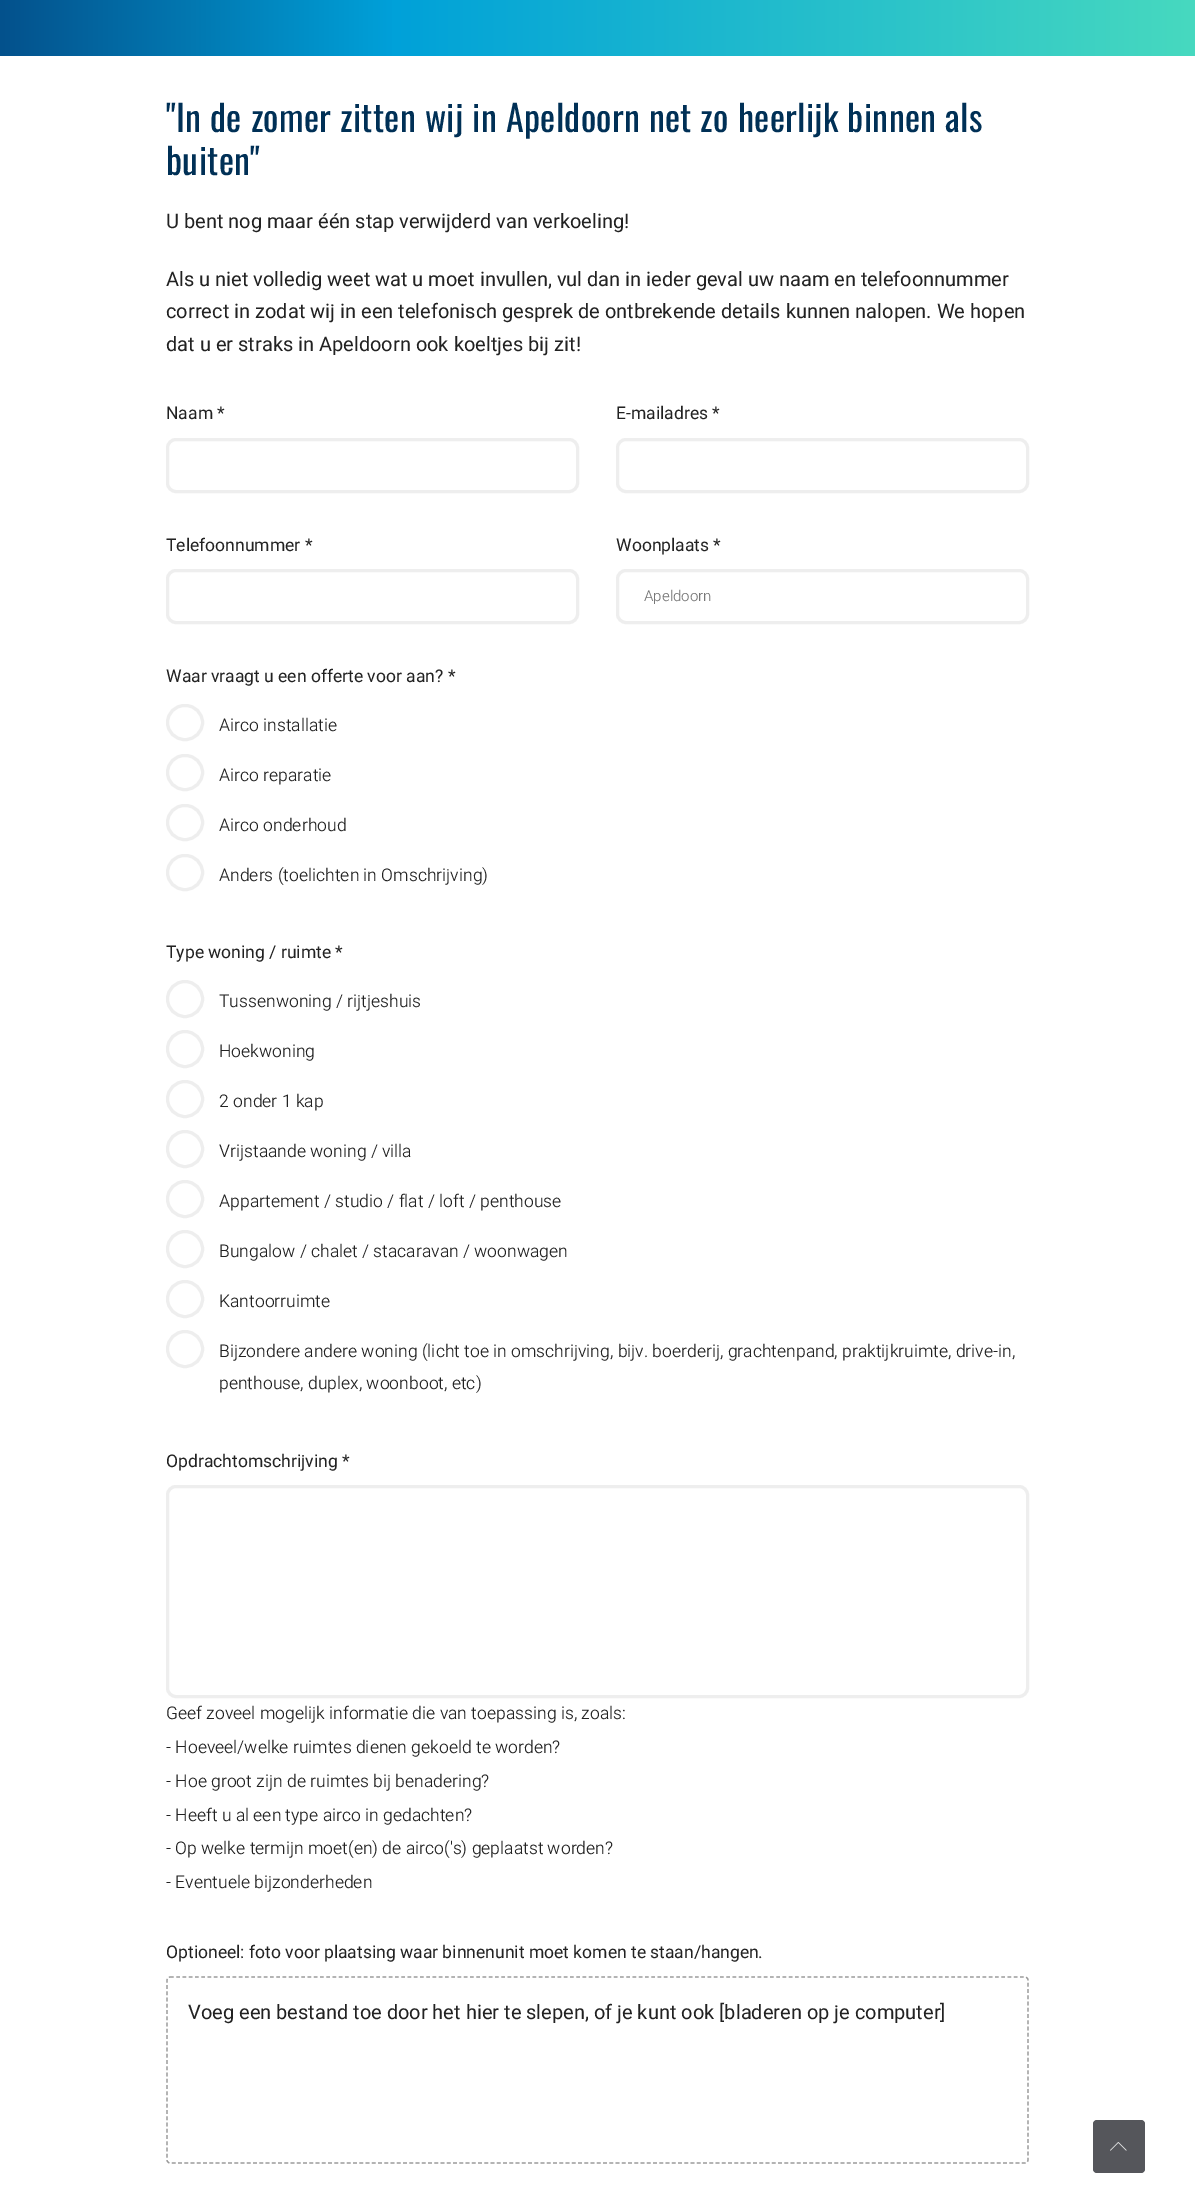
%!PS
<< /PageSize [1195 2209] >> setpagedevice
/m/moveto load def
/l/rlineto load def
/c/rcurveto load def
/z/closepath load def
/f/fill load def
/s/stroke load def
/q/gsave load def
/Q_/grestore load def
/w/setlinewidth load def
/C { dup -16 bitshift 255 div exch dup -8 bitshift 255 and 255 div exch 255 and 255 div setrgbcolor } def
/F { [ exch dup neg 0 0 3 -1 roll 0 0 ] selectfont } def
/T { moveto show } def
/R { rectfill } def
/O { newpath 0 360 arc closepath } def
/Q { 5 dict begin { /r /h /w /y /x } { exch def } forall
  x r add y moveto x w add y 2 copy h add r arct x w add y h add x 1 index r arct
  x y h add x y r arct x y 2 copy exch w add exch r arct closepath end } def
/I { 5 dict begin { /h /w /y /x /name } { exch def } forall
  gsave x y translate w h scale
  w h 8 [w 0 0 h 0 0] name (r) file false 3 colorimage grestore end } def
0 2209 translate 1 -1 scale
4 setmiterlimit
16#FFFFFF C
0 0 1195 2209 R
q 0 0 m 1195 0 l 0 56 l -1195 0 l z clip newpath
<< /ShadingType 2 /ColorSpace /DeviceRGB /Coords [0 -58 1195 -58] /Extend [true true] /Function << /FunctionType 3 /Domain [0 1] /Functions [<< /FunctionType 2 /Domain [0 1] /C0 [.016 .318 .549] /C1 [0 .631 .851] /N 1 >> << /FunctionType 2 /Domain [0 1] /C0 [0 .631 .851] /C1 [.278 .851 .749] /N 1 >>] /Bounds [.33] /Encode [0 1 0 1] >> >> shfill Q_
/Oswald-Regular 36 F
16#003056 C
166 132 m .38 0 ("In de zomer zitten wij in Apeldoorn net zo heerlijk binnen als) ashow
166 175 m .38 0 (buiten") ashow
/Heebo-Regular 20 F
16#222222 C
(U bent nog maar één stap verwijderd van verkoeling!) 166 228 T
(Als u niet volledig weet wat u moet invullen, vul dan in ieder geval uw naam en telefoonnummer) 166 286 T
(correct in zodat wij in een telefonisch gesprek de ontbrekende details kunnen nalopen. We hopen) 166 318 T
(dat u er straks in Apeldoorn ook koeltjes bij zit!) 166 351 T
/Heebo-Regular 17.5 F
(Naam *) 166 419 T
16#EEEEEE C
3 w
167.5 439.5 410 52 8.5 Q s
16#222222 C
(E-mailadres *) 616 419 T
16#EEEEEE C
617.5 439.5 410 52 8.5 Q s
16#222222 C
(Telefoonnummer *) 166 551 T
16#EEEEEE C
167.5 570.5 410 52 8.5 Q s
16#222222 C
(Woonplaats *) 616 551 T
16#EEEEEE C
617.5 570.5 410 52 8.5 Q s
/Heebo-Light 15 F
16#777777 C
(Apeldoorn) 644 601 T
/Heebo-Regular 17.5 F
16#222222 C
(Waar vraagt u een offerte voor aan? *) 166 682 T
16#EEEEEE C
167.5 705.5 35 34 17 Q s
/Heebo-Light 17.5 F
16#222222 C
(Airco installatie) 219 731 T
16#EEEEEE C
167.5 755.5 35 34 17 Q s
16#222222 C
(Airco reparatie) 219 781 T
16#EEEEEE C
167.5 805.5 35 34 17 Q s
16#222222 C
(Airco onderhoud) 219 831 T
16#EEEEEE C
167.5 855.5 35 34 17 Q s
16#222222 C
(Anders \(toelichten in Omschrijving\)) 219 881 T
/Heebo-Regular 17.5 F
(Type woning / ruimte *) 166 958 T
16#EEEEEE C
185 999 17.5 O s
/Heebo-Light 17.5 F
16#222222 C
(Tussenwoning / rijtjeshuis) 219 1007 T
16#EEEEEE C
185 1049 17.5 O s
16#222222 C
(Hoekwoning) 219 1057 T
16#EEEEEE C
185 1099 17.5 O s
16#222222 C
(2 onder 1 kap) 219 1107 T
16#EEEEEE C
185 1149 17.5 O s
16#222222 C
(Vrijstaande woning / villa) 219 1157 T
16#EEEEEE C
185 1199 17.5 O s
16#222222 C
(Appartement / studio / flat / loft / penthouse) 219 1207 T
16#EEEEEE C
185 1249 17.5 O s
16#222222 C
(Bungalow / chalet / stacaravan / woonwagen) 219 1257 T
16#EEEEEE C
185 1299 17.5 O s
16#222222 C
(Kantoorruimte) 219 1307 T
16#EEEEEE C
185 1349 17.5 O s
16#222222 C
(Bijzondere andere woning \(licht toe in omschrijving, bijv. boerderij, grachtenpand, praktijkruimte, drive-in,) 219 1357 T
(penthouse, duplex, woonboot, etc\)) 219 1389 T
/Heebo-Regular 17.5 F
(Opdrachtomschrijving *) 166 1467 T
16#EEEEEE C
167.5 1486.5 860 210 8.5 Q s
/Heebo-Light 17.5 F
16#222222 C
(Geef zoveel mogelijk informatie die van toepassing is, zoals:) 166 1719 T
(- Hoeveel/welke ruimtes dienen gekoeld te worden?) 166 1753 T
(- Hoe groot zijn de ruimtes bij benadering?) 166 1787 T
(- Heeft u al een type airco in gedachten?) 166 1821 T
(- Op welke termijn moet\(en\) de airco\('s\) geplaatst worden?) 166 1854 T
(- Eventuele bijzonderheden) 166 1888 T
/Heebo-Regular 17.5 F
(Optioneel: foto voor plaatsing waar binnenunit moet komen te staan/hangen.) 166 1958 T
16#999999 C
1.2 w
[3.75 2.5] 0 setdash
170 1977 m 855 0 l 1.5 0 3 1.5 3 3 c 0 180 l 0 1.5 -1.5 3 -3 3 c -855 0 l -1.5 0 -3 -1.5 -3 -3 c 0 -180 l 0 -1.5 1.5 -3 3 -3 c z s
/Heebo-Regular 20 F
16#222222 C
(Voeg een bestand toe door het hier te slepen, of je kunt ook [bladeren op je computer]) 188 2019 T
16#55565B C
1093 2120 52 53 4 Q f
(1.rgb) 1110 2142 17 9 I
showpage
